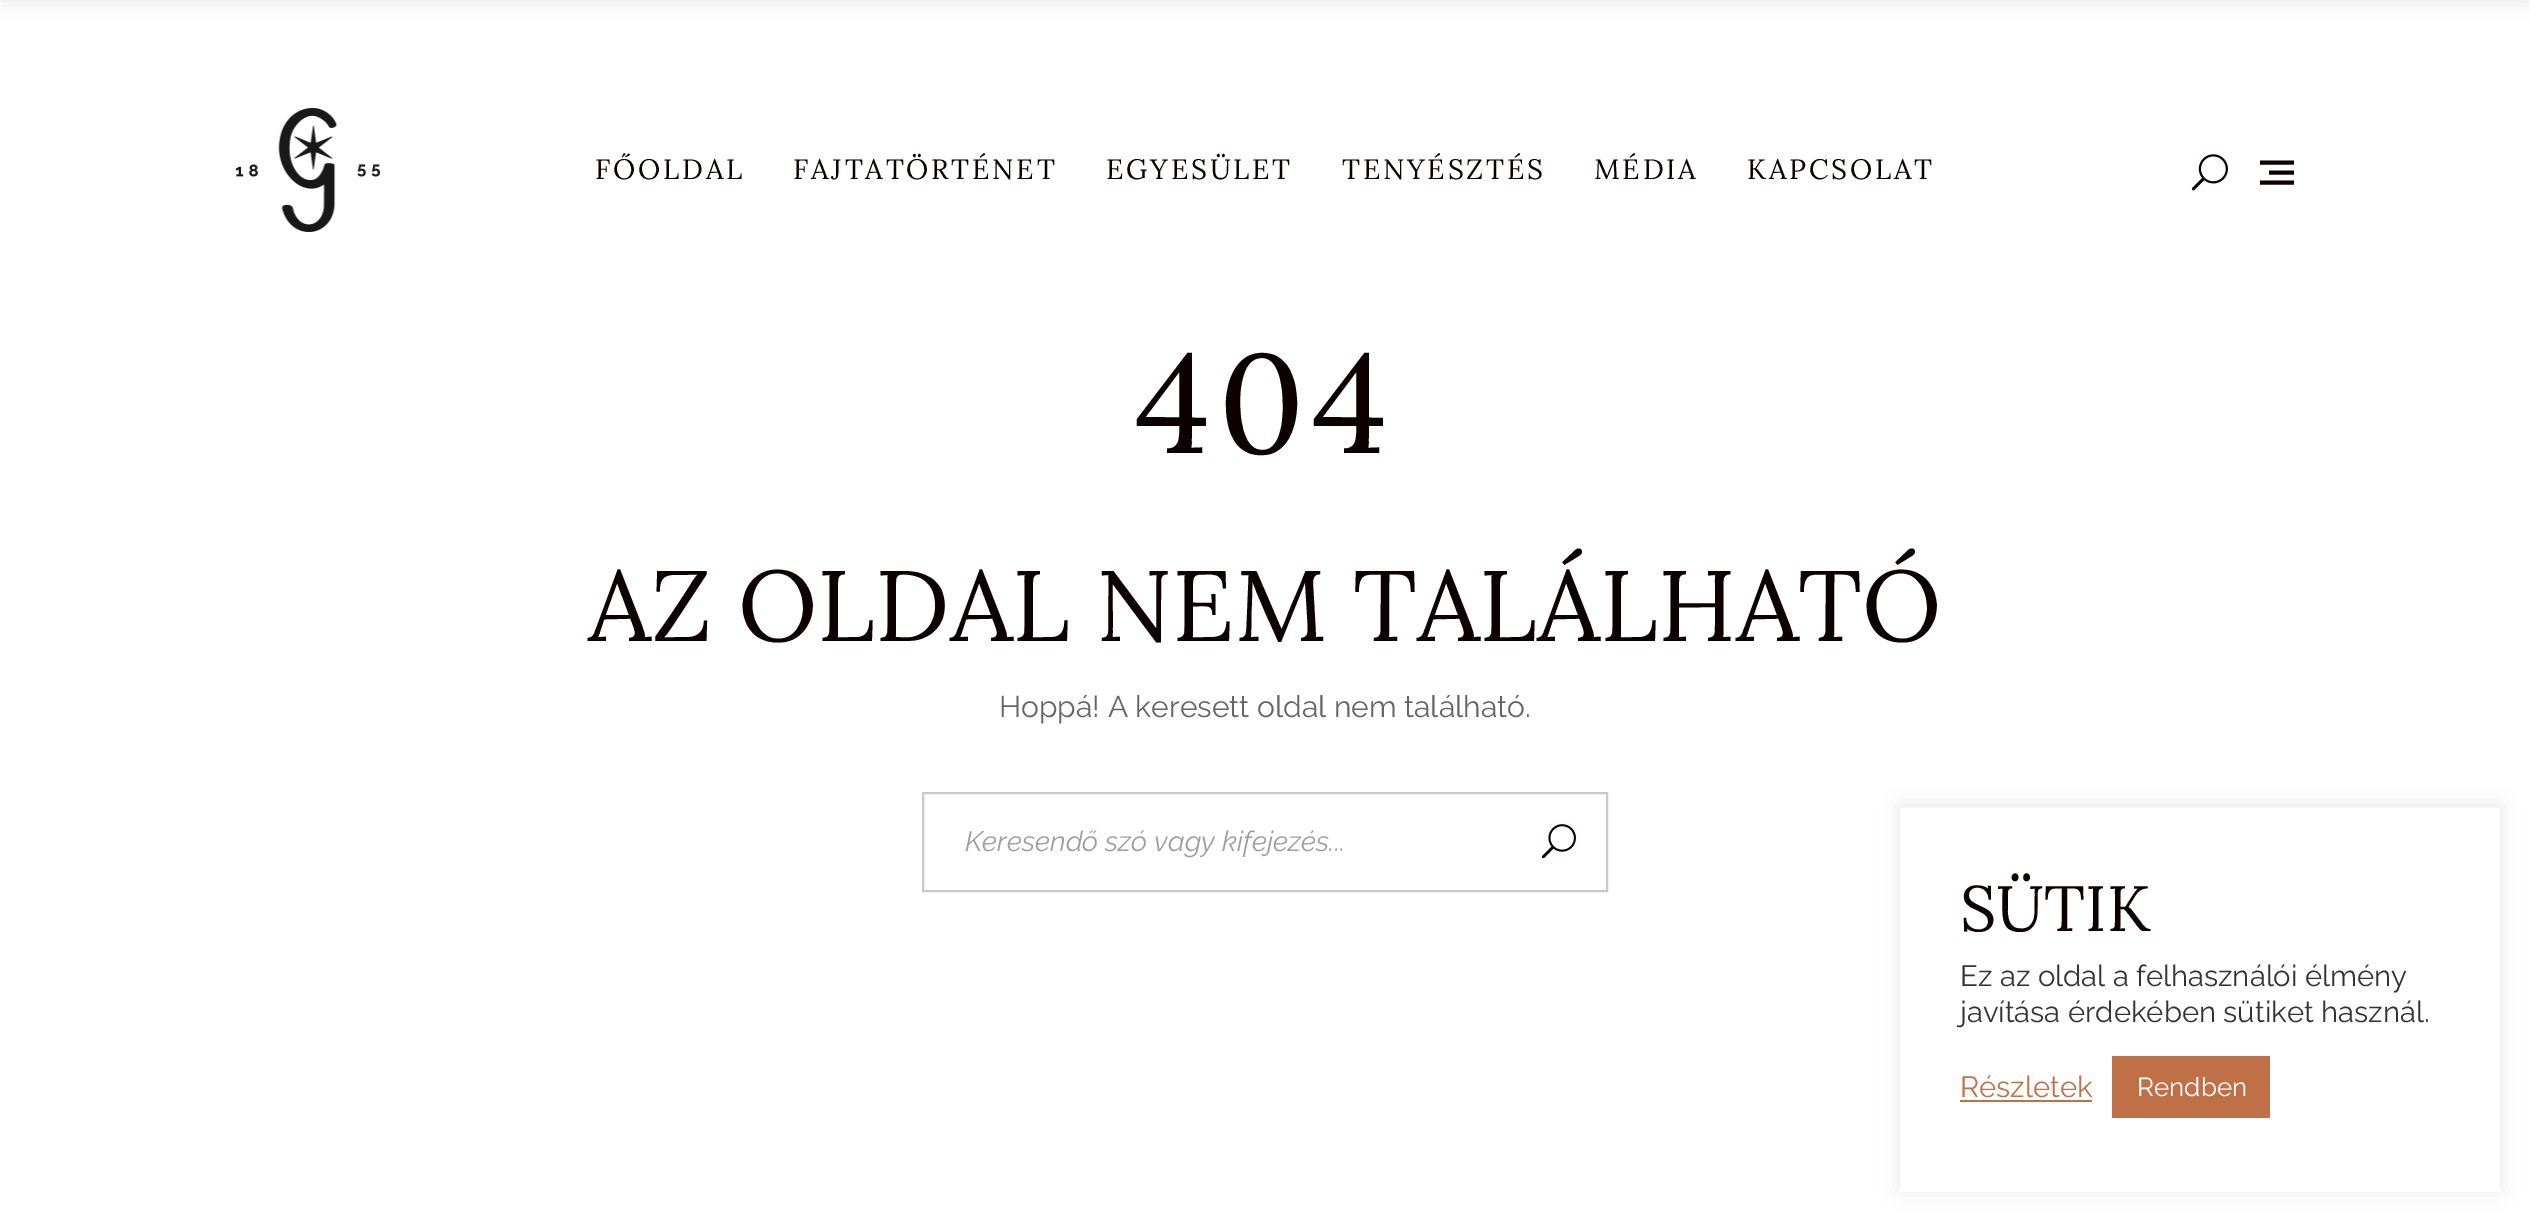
%!PS
<< /PageSize [2530 1221] /PageUsesTransparency true >> setpagedevice
/m/moveto load def
/l/rlineto load def
/z/closepath load def
/s/stroke load def
/q/gsave load def
/Q_/grestore load def
/w/setlinewidth load def
/C { dup -16 bitshift 255 div exch dup -8 bitshift 255 and 255 div exch 255 and 255 div setrgbcolor } def
/F { [ exch dup neg 0 0 3 -1 roll 0 0 ] selectfont } def
/T { moveto show } def
/R { rectfill } def
/A { dup .setfillconstantalpha .setstrokeconstantalpha } def
/Q { 5 dict begin { /r /h /w /y /x } { exch def } forall
  x r add y moveto x w add y 2 copy h add r arct x w add y h add x 1 index r arct
  x y h add x y r arct x y 2 copy exch w add exch r arct closepath end } def
/S { 12 dict begin { /a /b /q /h /w /y /x } { exch def } forall gsave /was 0 def
  9 -2 -9 { dup b mul 4 div /e exch def 1 sub .425 mul 2.718 exch exp 1 add a .99 .min exch div /now exch def
    1 1 now sub 1 was sub div sub A /was now def
    w h .min e 2 mul add 0 gt { x e sub y e sub w e 2 mul add h e 2 mul add
      q e add b .6 mul add w h .min 2 div e add .min 0 .max Q fill } if } for grestore end } def
/I { 5 dict begin { /h /w /y /x /name } { exch def } forall
  gsave x y translate w h scale
  w h 8 [w 0 0 h 0 0] name (r) file false 3 colorimage grestore end } def
0 .pushpdf14devicefilter
0 1221 translate 1 -1 scale
4 setmiterlimit
16#FFFFFF C
0 0 2530 1221 R
16#000000 C
0 -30 2530 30 0 10 .1 S
(1.rgb) 236 108 144 124 I
/Lora-Regular 28 F
16#0C0000 C
595 179 m 2.75 0 (FŐOLDAL) ashow
793 179 m 2.75 0 (FAJTATÖRTÉNET) ashow
1106 179 m 2.75 0 (EGYESÜLET) ashow
1342 179 m 2.75 0 (TENYÉSZTÉS) ashow
1594 179 m 2.75 0 (MÉDIA) ashow
1747 179 m 2.75 0 (KAPCSOLAT) ashow
(2.rgb) 2191 154 37 37 I
4 w
2260 162.5 m 34 0 l 2260 182.5 m 34 0 l 2269 172.5 m 25 0 l s
/Lora-Regular 140 F
1135 453 m 7 0 (404) ashow
/Lora-Regular 100 F
(AZ OLDAL NEM TALÁLHATÓ) 588 641 T
/Raleway-Regular 30 F
16#656565 C
(Hoppá! A keresett oldal nem található.) 999 717 T
16#C9C9C9 C
2 w
923 793 684 98 rectstroke
/Raleway-Italic 28 F
16#9F9E9E C
(Keresendő szó vagy kifejezés...) 965 851 T
(3.rgb) 1541 824 35 35 I
q
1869 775 m 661 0 l 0 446 l -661 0 l z 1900 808 m 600 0 l 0 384 l -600 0 l z eoclip newpath
16#ACABAB C
1900 806 600 384 0 10 .3 S
Q_
/Lora-Regular 64 F
16#0C0000 C
(SÜTIK) 1960 931 T
/Raleway-Regular 29.3 F
16#333333 C
(Ez az oldal a felhasználói élmény) 1960 986 T
(javítása érdekében sütiket használ.) 1960 1022 T
16#C07046 C
(Részletek) 1960 1097 T
1960 1100 132 2 R
2112 1056 158 62 R
/Raleway-Regular 26 F
16#FFFFFF C
(Rendben) 2137 1096 T
.poppdf14devicefilter showpage
